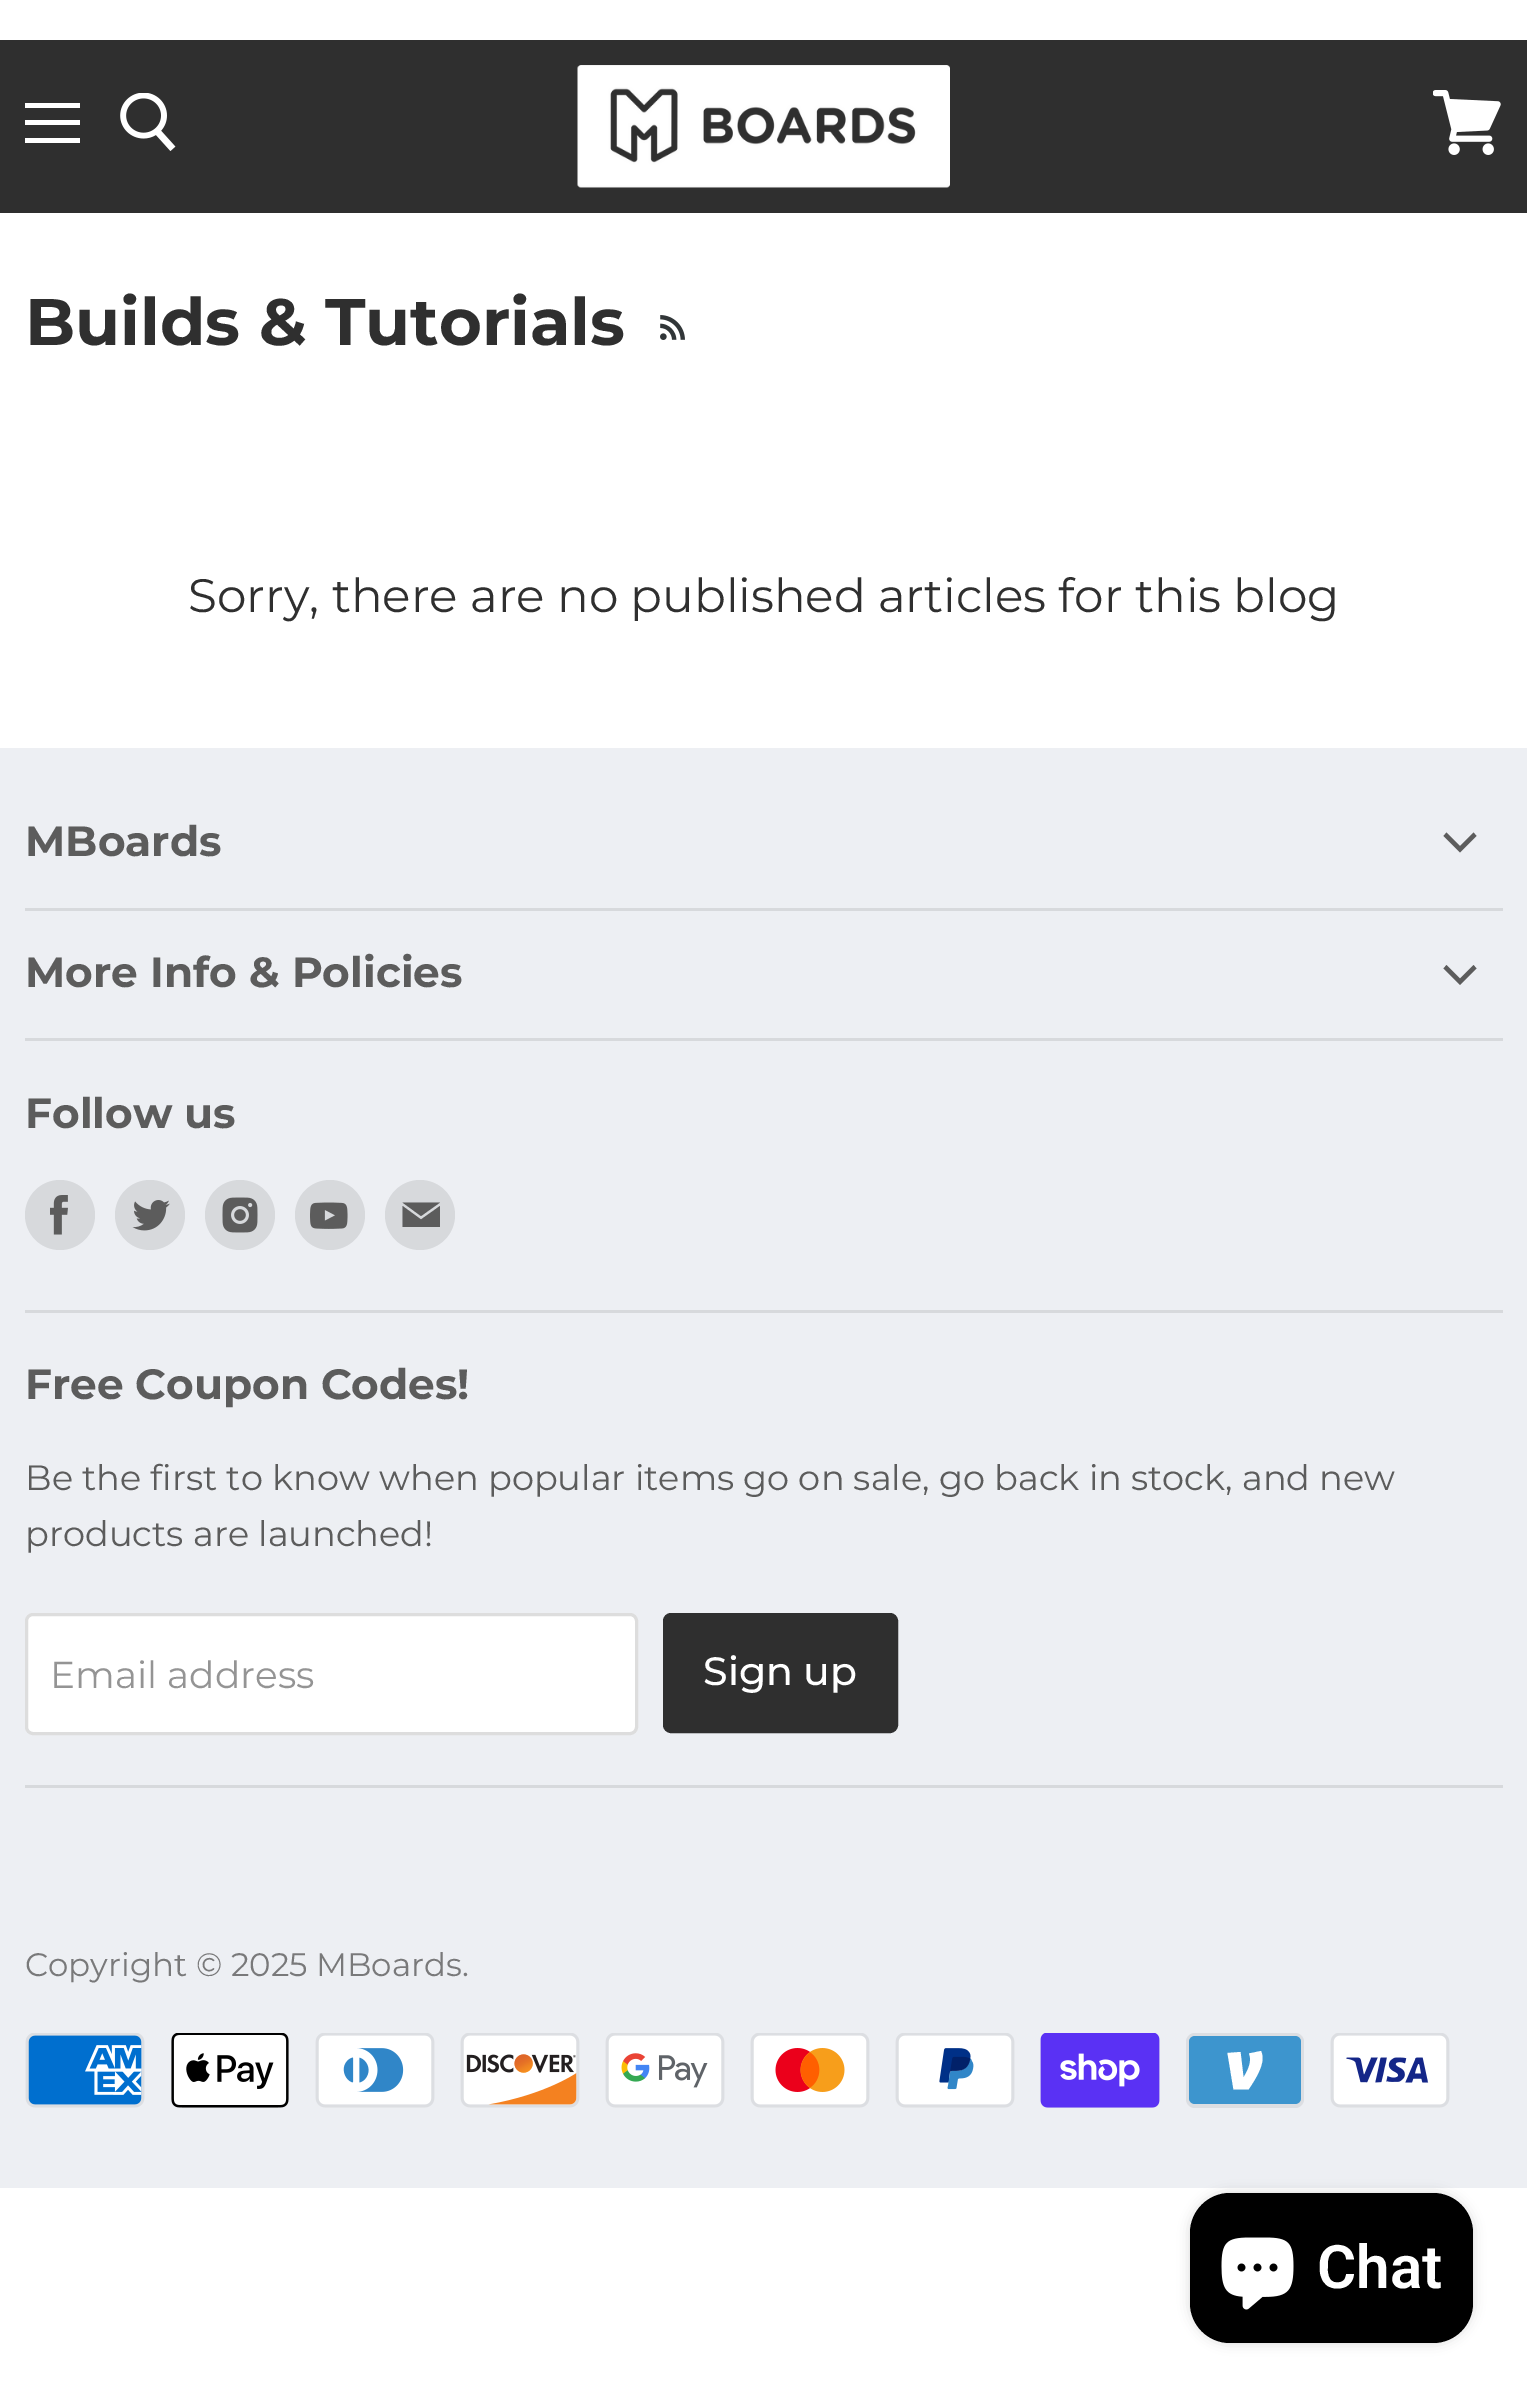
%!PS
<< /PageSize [1527 2394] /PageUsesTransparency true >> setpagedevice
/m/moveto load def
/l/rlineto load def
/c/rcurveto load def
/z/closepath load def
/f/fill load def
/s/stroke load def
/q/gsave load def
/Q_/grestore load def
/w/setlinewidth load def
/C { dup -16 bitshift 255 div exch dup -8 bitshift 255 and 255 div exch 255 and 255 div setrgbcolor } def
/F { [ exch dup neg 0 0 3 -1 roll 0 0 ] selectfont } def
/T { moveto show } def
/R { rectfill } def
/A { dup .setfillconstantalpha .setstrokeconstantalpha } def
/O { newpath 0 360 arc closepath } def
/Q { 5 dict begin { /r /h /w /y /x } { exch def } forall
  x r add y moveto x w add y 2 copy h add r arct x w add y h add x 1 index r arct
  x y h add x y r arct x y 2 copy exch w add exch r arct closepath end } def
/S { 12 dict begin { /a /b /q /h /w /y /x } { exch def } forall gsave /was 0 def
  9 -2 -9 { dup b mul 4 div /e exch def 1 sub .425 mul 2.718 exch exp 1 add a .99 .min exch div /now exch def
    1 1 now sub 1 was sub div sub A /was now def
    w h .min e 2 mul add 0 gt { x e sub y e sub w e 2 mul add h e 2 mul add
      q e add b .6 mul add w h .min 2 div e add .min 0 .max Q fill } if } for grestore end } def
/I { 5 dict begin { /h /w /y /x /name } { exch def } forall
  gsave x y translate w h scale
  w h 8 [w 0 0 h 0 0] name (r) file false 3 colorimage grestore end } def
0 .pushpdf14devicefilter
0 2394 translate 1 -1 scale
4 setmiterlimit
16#FFFFFF C
0 0 1527 2394 R
16#2F2F2F C
0 40 1527 173 R
16#FFFFFF C
25 103 55 5 R
25 120 55 5 R
25 138 55 5 R
(1.rgb) 120 93 56 58 I
(2.rgb) 577 65 373 123 I
(3.rgb) 1433 90 68 65 I
/Montserrat-Bold 65.6 F
16#2F2F2F C
(Builds & Tutorials) 25 345 T
(4.rgb) 660 315 25 25 I
/Montserrat-Regular 46.9 F
(Sorry, there are no published articles for this blog) 188 612 T
16#EDEFF3 C
0 748 1527 1440 R
16#D7D9DC C
25 908 1478 3 R
/Montserrat-Bold 42.25 F
16#5C5C5C C
(MBoards) 25 856 T
1460 852.5 m 16.5 -16.5 l -3 -3.5 l -13.5 13.5 l z 1460 846 m -13.5 -13.5 l -3 3.5 l 16.5 16.5 l z eofill
16#D7D9DC C
25 1038 1478 3 R
16#5C5C5C C
(More Info & Policies) 25 987 T
1460 985 m 16.5 -16.5 l -3 -3.5 l -13.5 13.5 l z 1460 978.5 m -13.5 -13.5 l -3 3.5 l 16.5 16.5 l z eofill
16#D7D9DC C
25 1310 1478 3 R
16#5C5C5C C
(Follow us) 25 1128 T
16#D7D9DC C
60 1215 35 O f
(5.rgb) 50 1195 18 40 I
150 1215 35 O f
(6.rgb) 132 1200 38 31 I
240 1215 35 O f
(7.rgb) 222 1197 36 36 I
330 1215 35 O f
(8.rgb) 310 1202 38 27 I
420 1215 35 O f
16#5C5C5C C
440 1202.5 m -37.5 0 l 18.5 13.5 l z 421 1219.5 m -18.5 -13.5 l 0 21 l 37.5 0 l 0 -21 l z eofill
16#D7D9DC C
25 1785 1478 3 R
16#5C5C5C C
(Free Coupon Codes!) 25 1399 T
/Montserrat-Regular 35.15 F
(Be the first to know when popular items go on sale, go back in stock, and new) 25 1490 T
(products are launched!) 25 1546 T
16#FFFFFF C
26.5 1614.5 610 119 6.5 Q q f Q_
16#DDDDDD C
3 w
s
/Montserrat-Regular 37.5 F
16#949494 C
(Email address) 50 1688 T
16#2F2F2F C
664.5 1614.5 232 117 6.5 Q q f Q_
s
/Montserrat-Medium 39.5 F
16#FFFFFF C
(Sign up) 703 1685 T
/Montserrat-Regular 32.5 F
16#79797A C
(Copyright © 2025 MBoards.) 25 1976 T
(9.rgb) 25 2033 120 75 I
(10.rgb) 171 2033 118 75 I
(11.rgb) 315 2033 120 75 I
(12.rgb) 460 2033 120 75 I
(13.rgb) 605 2033 120 75 I
(14.rgb) 750 2033 120 75 I
(15.rgb) 895 2033 120 75 I
(16.rgb) 1040 2033 120 75 I
16#DCDEE2 C
1186 2033 118 75 9 Q f
16#3D95CE C
1295 2036 m 3 0 6 2 6 6 c 0 56 l 0 4 -3 6 -6 6 c -100 0 l -3 0 -6 -2 -6 -6 c 0 -56 l 0 -4 3 -6 6 -6 c 100 0 l eofill
16#FFFFFF C
1262.5 2058.5 m 0 9.5 -8 22 -14 31 c -15 0 l -6 -36.5 l 13 -1 l 3 25.5 l 4 -6.5 9 -16 5.5 -24 c 12 -2.5 l 1 2 1.5 4.5 1.5 7.5 c z f
(17.rgb) 1330 2033 120 75 I
16#000000 C
1190 2193 283 150 40 6 .15 S
1190 2193 283 150 40 Q f
(18.rgb) 1221 2237 73 73 I
/Roboto-SemiBold 60 F
16#FFFFFF C
(Chat) 1317 2288 T
.poppdf14devicefilter showpage
